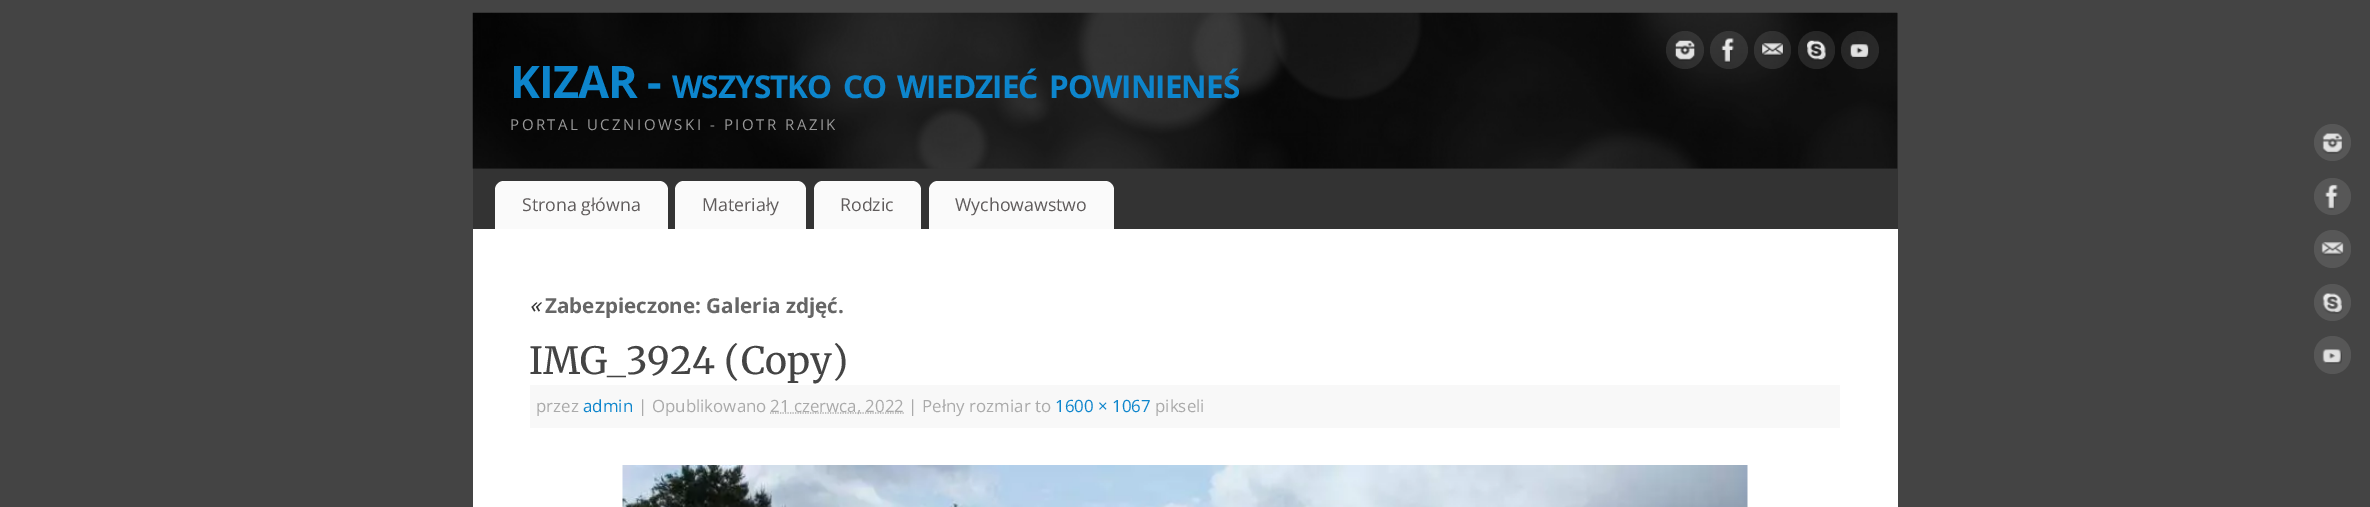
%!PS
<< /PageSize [2370 507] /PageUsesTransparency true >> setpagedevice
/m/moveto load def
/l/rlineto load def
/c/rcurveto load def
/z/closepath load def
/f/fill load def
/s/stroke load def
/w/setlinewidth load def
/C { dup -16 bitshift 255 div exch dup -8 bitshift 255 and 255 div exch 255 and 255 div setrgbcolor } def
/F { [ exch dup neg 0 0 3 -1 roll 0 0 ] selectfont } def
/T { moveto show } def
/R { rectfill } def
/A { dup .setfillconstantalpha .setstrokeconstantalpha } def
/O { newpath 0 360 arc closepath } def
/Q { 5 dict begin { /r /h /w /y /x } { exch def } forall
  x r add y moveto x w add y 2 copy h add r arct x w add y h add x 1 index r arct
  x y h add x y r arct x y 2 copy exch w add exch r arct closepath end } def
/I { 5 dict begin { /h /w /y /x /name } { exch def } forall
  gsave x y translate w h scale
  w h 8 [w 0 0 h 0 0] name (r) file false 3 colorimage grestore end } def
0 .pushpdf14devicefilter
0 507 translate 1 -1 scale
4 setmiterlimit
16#444444 C
0 0 2370 507 R
16#333333 C
473 13 1425 216 R
(1.rgb) 472 12 1426 157 I
0.1 A
16#FFFFFF C
1685 50 19 O f
1 A
(2.rgb) 1675 40 20 21 I
0.1 A
1729 50 19 O f
1 A
(3.rgb) 1721 38 13 25 I
0.1 A
1754 31 37 38 18.5 Q f
1 A
(4.rgb) 1761 43 23 13 I
0.1 A
1798 31 37 38 18.5 Q f
1 A
(5.rgb) 1807 40 19 21 I
0.1 A
1860 50 19 O f
1 A
(6.rgb) 1850 44 20 14 I
/OpenSans-Bold 45 F
16#0D85CC C
510 98 m -1 0 (KIZAR -) ashow
/OpenSans-Bold 31.5 F
672 98 m -1 0 (WSZYSTKO) ashow
843 98 m -1 0 (CO) ashow
897 98 m -1 0 (WIEDZIEĆ) ashow
1049 98 m -1 0 (POWINIENEŚ) ashow
/OpenSans-Regular 15 F
16#999999 C
510 130 m 2.5 0 (PORTAL UCZNIOWSKI - PIOTR RAZIK) ashow
16#FAFAFA C
504 181 m 155 0 l 5 0 9 4 9 9 c 0 39 l -173 0 l 0 -39 l 0 -5 4 -9 9 -9 c z f
/OpenSans-Regular 17.75 F
16#5F5B5B C
(Strona główna) 522 211 T
16#FAFAFA C
684 181 m 113 0 l 5 0 9 4 9 9 c 0 39 l -131 0 l 0 -39 l 0 -5 4 -9 9 -9 c z f
16#5F5B5B C
(Materiały) 702 211 T
16#FAFAFA C
823 181 m 89 0 l 5 0 9 4 9 9 c 0 39 l -107 0 l 0 -39 l 0 -5 4 -9 9 -9 c z f
16#5F5B5B C
(Rodzic) 840 211 T
16#FAFAFA C
938 181 m 167 0 l 5 0 9 4 9 9 c 0 39 l -185 0 l 0 -39 l 0 -5 4 -9 9 -9 c z f
16#5F5B5B C
(Wychowawstwo) 955 211 T
16#FFFFFF C
473 229 1425 278 R
/OpenSans-Italic 23 F
16#333333 C
(«) 529 313 T
/OpenSans-Bold 20.6 F
16#666666 C
(Zabezpieczone: Galeria zdjęć.) 545 313 T
/Merriweather-Regular 37.5 F
16#444444 C
(IMG_3924 \(Copy\)) 529 374 T
16#F8F8F8 C
530 385 1310 43 R
/OpenSans-Regular 16.9 F
16#AAAAAA C
(przez) 536 412 T
16#0D85CC C
(admin) 583 412 T
16#AAAAAA C
(| Opublikowano) 638 412 T
1.2 w
[1.25 1.25] 0 setdash
770 413 m 134 0 l s
(21 czerwca, 2022 | Pełny rozmiar to) 770 412 T
16#0D85CC C
(1600 × 1067) 1055 412 T
16#AAAAAA C
(pikseli) 1155 412 T
(7.rgb) 622 465 1126 42 I
16#575757 C
2332.5 142.5 18.5 O f
(8.rgb) 2322 133 21 21 I
2332.5 196.5 18.5 O f
(9.rgb) 2325 184 13 26 I
2314 230 37 38 18.5 Q f
(10.rgb) 2321 242 23 14 I
2332.5 302.5 18.5 O f
(11.rgb) 2322 293 21 21 I
2314 336 37 38 18.5 Q f
(12.rgb) 2322 349 20 15 I
.poppdf14devicefilter showpage
